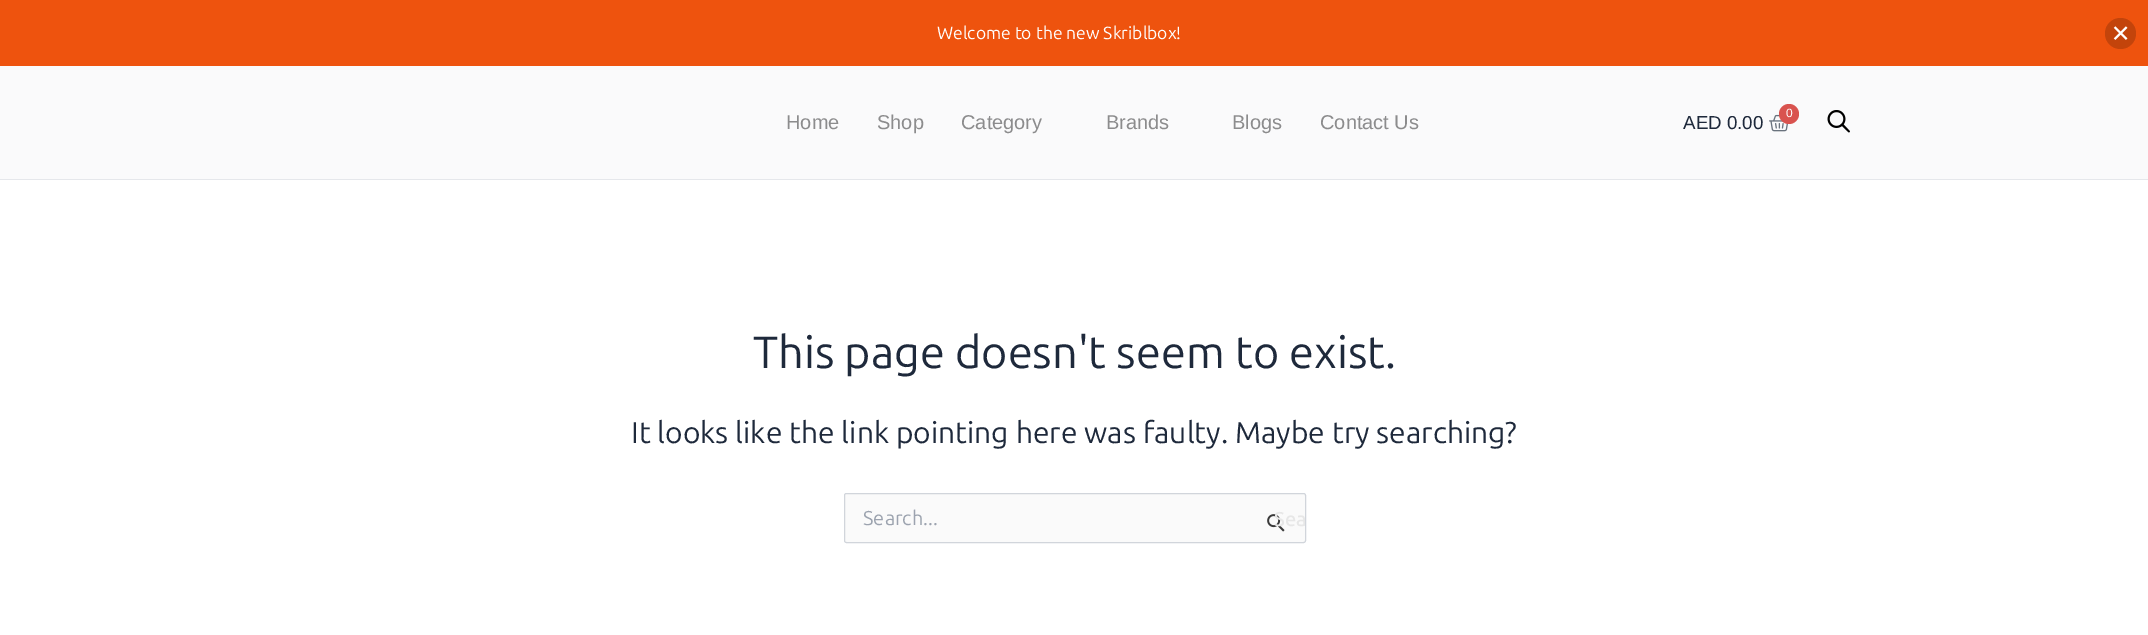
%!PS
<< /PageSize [2148 635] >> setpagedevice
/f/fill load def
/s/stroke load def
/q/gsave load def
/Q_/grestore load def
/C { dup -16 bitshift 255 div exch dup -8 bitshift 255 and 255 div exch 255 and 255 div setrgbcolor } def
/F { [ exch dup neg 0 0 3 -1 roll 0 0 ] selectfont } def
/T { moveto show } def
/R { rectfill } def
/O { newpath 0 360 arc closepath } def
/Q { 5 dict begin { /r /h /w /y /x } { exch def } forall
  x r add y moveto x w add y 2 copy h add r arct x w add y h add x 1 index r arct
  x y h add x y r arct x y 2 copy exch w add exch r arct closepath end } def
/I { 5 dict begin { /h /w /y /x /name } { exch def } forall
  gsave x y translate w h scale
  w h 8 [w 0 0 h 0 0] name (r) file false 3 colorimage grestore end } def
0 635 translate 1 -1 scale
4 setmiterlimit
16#FFFFFF C
0 0 2148 635 R
16#EE530E C
0 0 2148 66 R
/Ubuntu-Regular 17.5 F
16#FFFFFF C
(Welcome to the new Skriblbox!) 937 39 T
16#C3440B C
2120.5 33.5 15.5 O f
(1.rgb) 2113 26 15 14 I
16#FAFAFB C
0 66 2148 113 R
16#E5E7EB C
0 179 2148 1 R
/LiberationSans-Regular 20 F
16#8C8C8D C
(Home) 786 129 T
(Shop) 877 129 T
(Category) 961 129 T
(Brands) 1106 129 T
(Blogs) 1232 129 T
(Contact Us) 1320 129 T
(2.rgb) 1769 114 20 18 I
16#D9534F C
1789 114 10 O f
/LiberationSans-Regular 12 F
16#FFFFFF C
(0) 1786 117 T
/LiberationSans-Regular 18.75 F
16#1E293B C
(AED 0.00) 1683 129 T
(3.rgb) 1827 110 23 23 I
/Ubuntu-Regular 45 F
(This page doesn't seem to exist.) 753 368 T
/Ubuntu-Regular 30 F
(It looks like the link pointing here was faulty. Maybe try searching?) 631 443 T
16#FAFAFA C
844.5 493.5 461 49 2 Q q f Q_
16#D1D5DB C
s
/Ubuntu-Regular 20 F
16#9CA3AF C
(Search...) 863 525 T
(4.rgb) 1267 514 18 18 I
/Ubuntu-Medium 20 F
16#E7E7E7 C
(Sea) 1274 526 T
showpage
